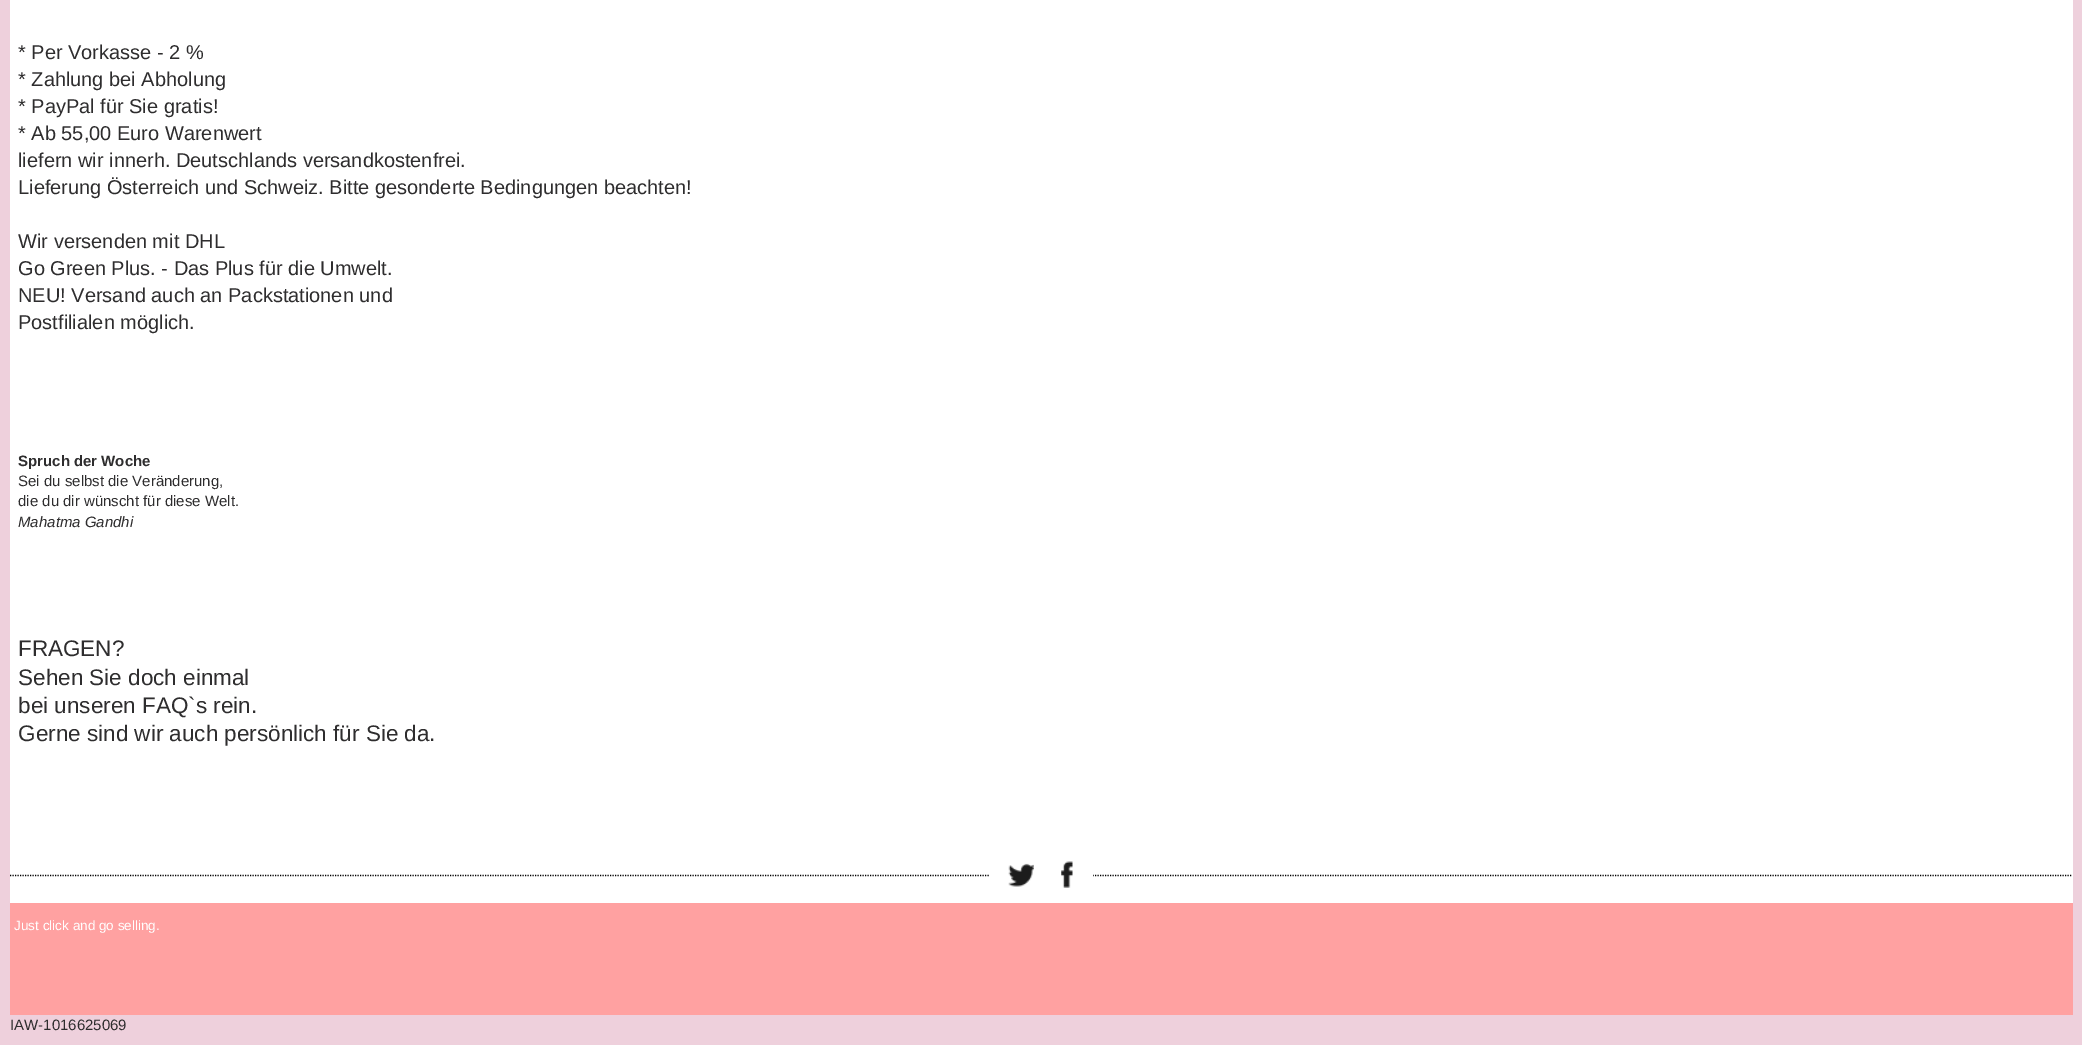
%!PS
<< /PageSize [2082 1045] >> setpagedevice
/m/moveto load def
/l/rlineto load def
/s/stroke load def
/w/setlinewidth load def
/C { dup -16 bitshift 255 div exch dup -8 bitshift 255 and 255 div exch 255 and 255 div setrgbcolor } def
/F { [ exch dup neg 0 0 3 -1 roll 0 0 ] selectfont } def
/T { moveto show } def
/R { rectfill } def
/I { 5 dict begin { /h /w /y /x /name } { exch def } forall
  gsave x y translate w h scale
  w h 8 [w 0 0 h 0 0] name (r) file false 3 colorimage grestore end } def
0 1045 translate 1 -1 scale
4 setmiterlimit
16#EED0DC C
0 0 2082 1045 R
16#FFFFFF C
10 0 2063 903 R
/LiberationSans-Regular 20 F
16#2E2D2E C
(* Per Vorkasse - 2 %) 18 59 T
(* Zahlung bei Abholung) 18 86 T
(* PayPal für Sie gratis!) 18 113 T
(* Ab 55,00 Euro Warenwert) 18 140 T
(liefern wir innerh. Deutschlands versandkostenfrei.) 18 167 T
(Lieferung Österreich und Schweiz. Bitte gesonderte Bedingungen beachten!) 18 194 T
(Wir versenden mit DHL) 18 248 T
(Go Green Plus. - Das Plus für die Umwelt.) 18 275 T
(NEU! Versand auch an Packstationen und) 18 302 T
(Postfilialen möglich.) 18 329 T
/LiberationSans-Bold 15 F
(Spruch der Woche) 18 466 T
/LiberationSans-Regular 15 F
(Sei du selbst die Veränderung,) 18 486 T
(die du dir wünscht für diese Welt.) 18 506 T
/LiberationSans-Italic 15 F
(Mahatma Gandhi) 18 527 T
/LiberationSans-Regular 22.5 F
(FRAGEN?) 18 656 T
(Sehen Sie doch einmal) 18 685 T
(bei unseren FAQ`s rein.) 18 713 T
(Gerne sind wir auch persönlich für Sie da.) 18 741 T
16#000000 C
1.2 w
[1.25 1.25] 0 setdash
10 875.5 m 2062.5 0 l s
16#FFFFFF C
990 874 103 3 R
(1.rgb) 1008 863 26 24 I
(2.rgb) 1061 861 12 27 I
16#FFA1A1 C
10 903 2063 112 R
/LiberationSans-Regular 13.5 F
16#FFFFFF C
(Just click and go selling.) 14 930 T
/LiberationSans-Regular 15 F
16#2E2D2E C
(IAW-1016625069) 10 1030 T
showpage
